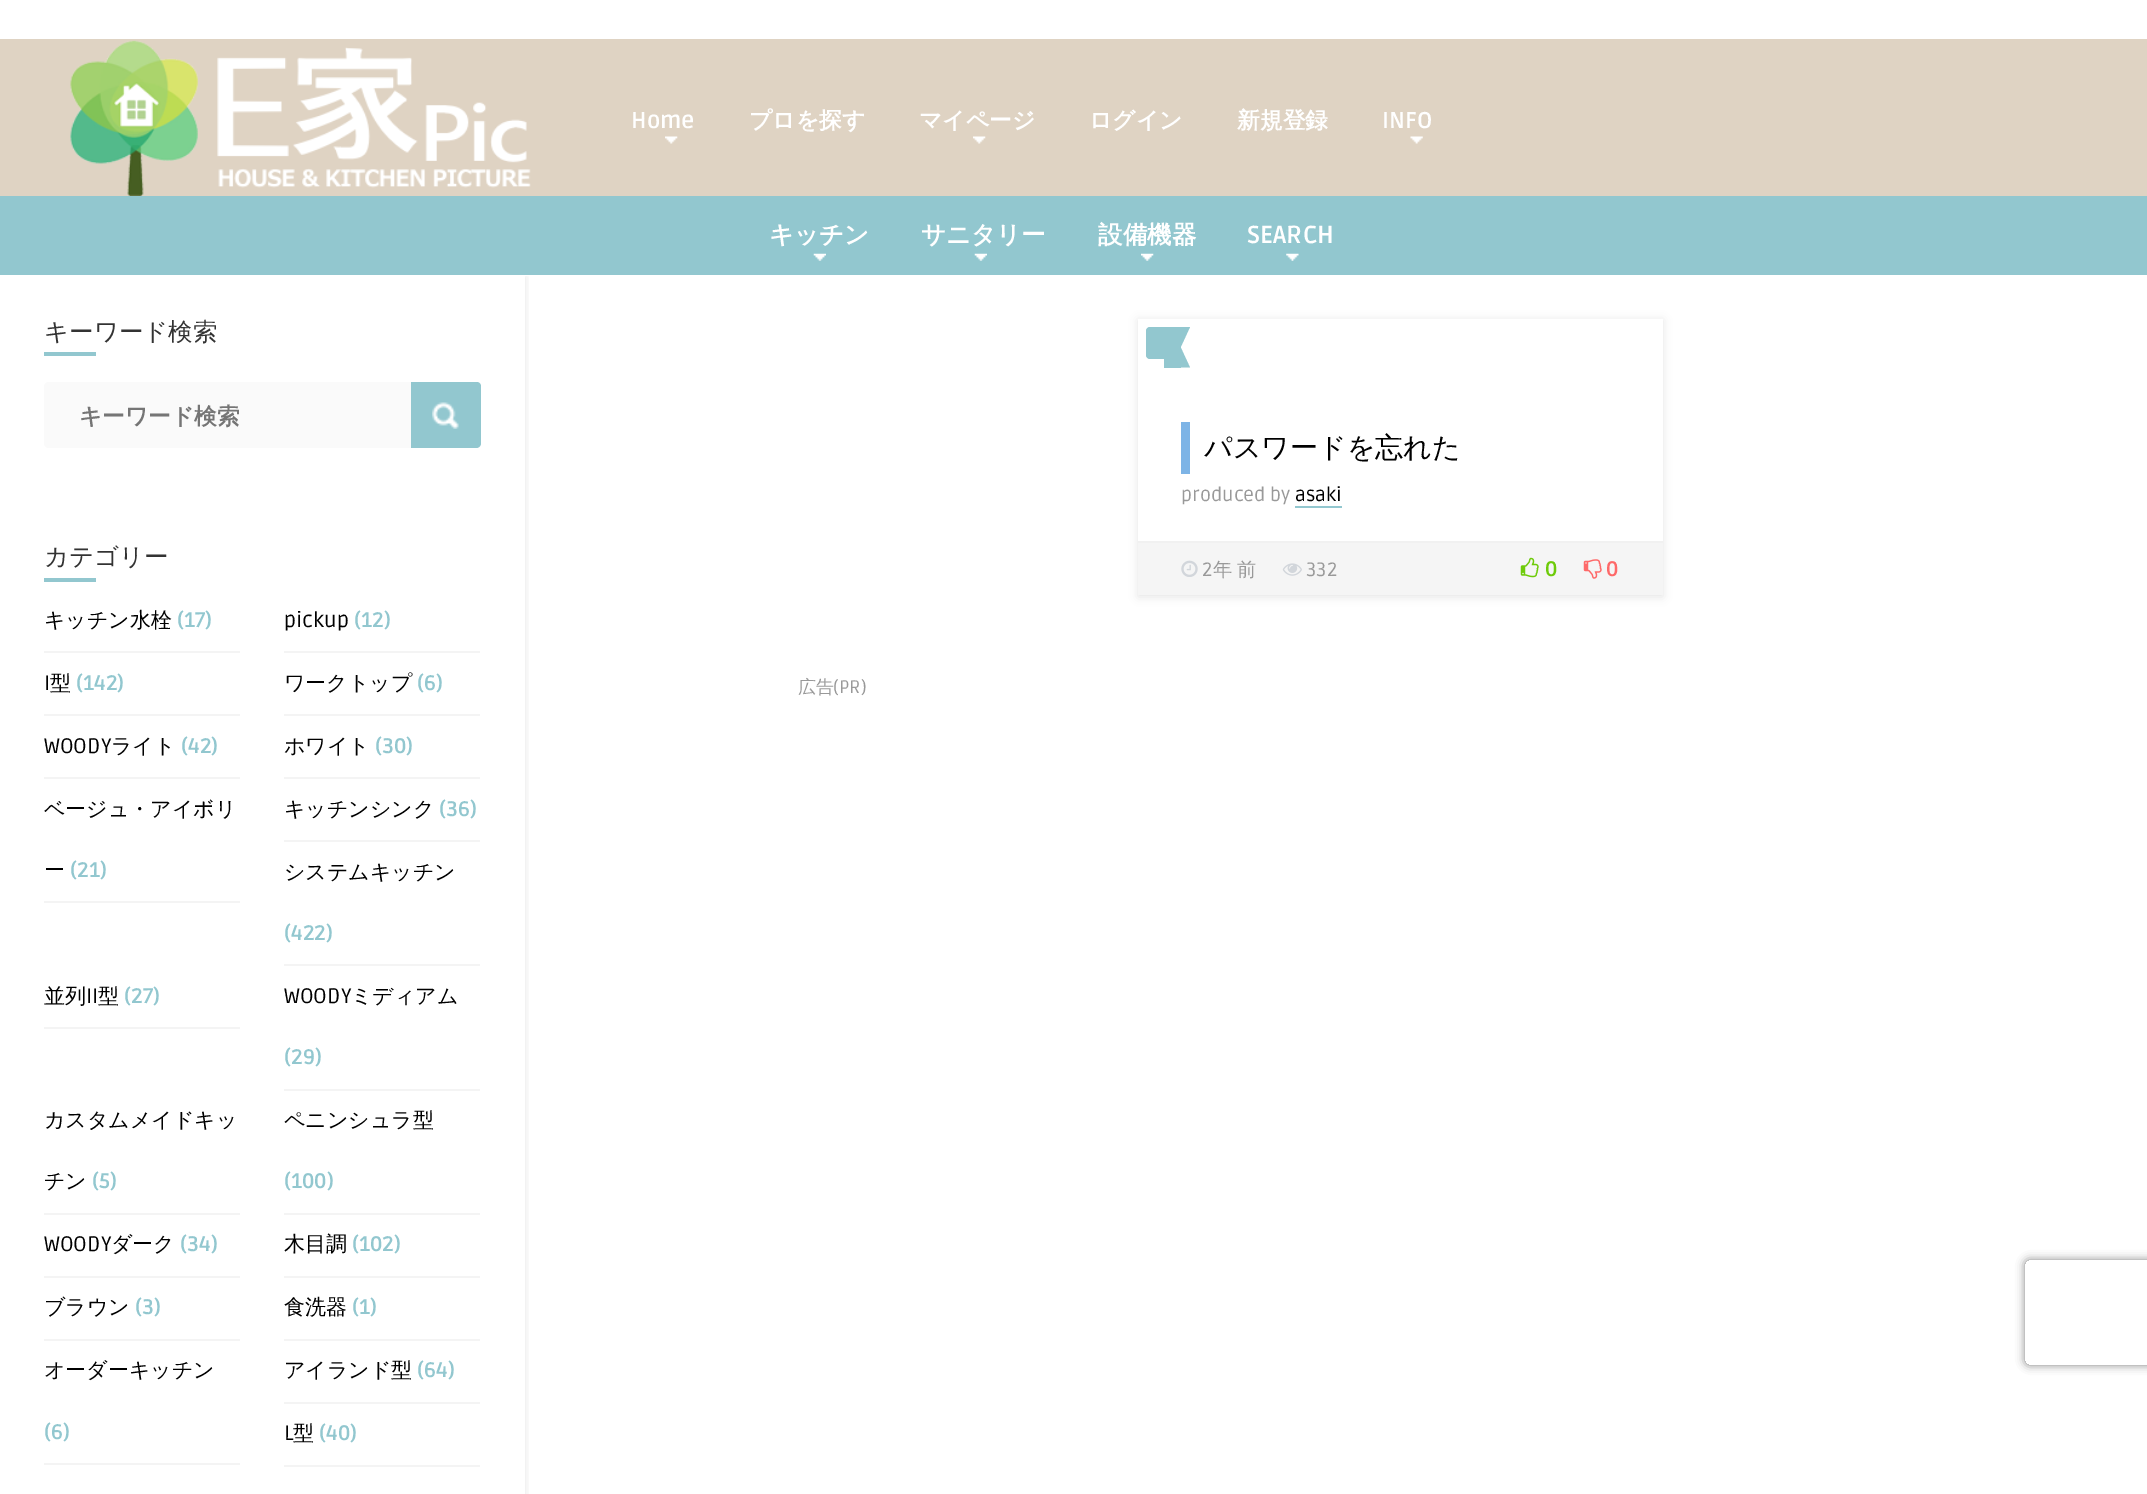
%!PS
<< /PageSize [2147 1494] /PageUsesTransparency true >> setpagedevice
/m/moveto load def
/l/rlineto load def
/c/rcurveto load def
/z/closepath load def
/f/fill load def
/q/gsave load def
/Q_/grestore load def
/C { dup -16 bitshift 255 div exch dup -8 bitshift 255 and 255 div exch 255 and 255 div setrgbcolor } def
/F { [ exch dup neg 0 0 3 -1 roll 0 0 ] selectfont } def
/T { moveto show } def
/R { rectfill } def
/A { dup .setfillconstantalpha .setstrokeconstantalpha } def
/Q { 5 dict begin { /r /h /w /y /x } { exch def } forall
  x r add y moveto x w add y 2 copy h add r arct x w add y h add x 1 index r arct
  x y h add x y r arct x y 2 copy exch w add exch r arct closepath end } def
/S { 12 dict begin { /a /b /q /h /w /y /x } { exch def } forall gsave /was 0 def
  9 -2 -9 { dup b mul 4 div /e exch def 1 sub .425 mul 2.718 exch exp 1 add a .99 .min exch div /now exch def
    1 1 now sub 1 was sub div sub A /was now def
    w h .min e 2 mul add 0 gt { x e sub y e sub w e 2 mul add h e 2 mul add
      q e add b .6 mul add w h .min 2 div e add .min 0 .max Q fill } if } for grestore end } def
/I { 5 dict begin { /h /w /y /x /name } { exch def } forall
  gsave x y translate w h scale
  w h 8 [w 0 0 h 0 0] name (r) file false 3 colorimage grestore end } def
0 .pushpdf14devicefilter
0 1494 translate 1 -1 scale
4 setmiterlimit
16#FFFFFF C
0 0 2147 1494 R
16#DFD3C3 C
0 39 2147 157 R
(1.rgb) 70 40 461 156 I
/Ruda-Bold 22.75 F
16#FFFFFF C
(Home) 631 128 T
(2.rgb) 665 136 13 8 I
/WenQuanYiZenHei-Bold 22.75 F
(プロを探す) 749 128 T
(マイページ) 919 128 T
(3.rgb) 973 136 13 8 I
(ログイン) 1089 128 T
(新規登録) 1237 128 T
/Ruda-Bold 22.75 F
(INFO) 1382 128 T
(4.rgb) 1410 136 13 8 I
16#92C7CF C
0 196 2147 79 R
/WenQuanYiZenHei-Bold 24.5 F
16#FFFFFF C
(キッチン) 769 243 T
(5.rgb) 813 253 13 8 I
(サニタリー) 921 243 T
(5.rgb) 974 253 13 8 I
(設備機器) 1098 243 T
(6.rgb) 1141 253 13 8 I
/Ruda-Bold 24.5 F
(SEARCH) 1247 243 T
(7.rgb) 1286 253 13 8 I
q
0 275 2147 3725 rectclip
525 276 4 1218 rectclip
16#000000 C
0 277 525 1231 0 4.5 .1 S
Q_
/WenQuanYiZenHei-Medium 24.5 F
16#333333 C
(キーワード検索) 44 340 T
16#92C7CF C
44 352 52 4 R
16#FAFAFA C
49 382 m 362 0 l 0 66 l -362 0 l -3 0 -5 -2 -5 -5 c 0 -56 l 0 -3 2 -5 5 -5 c z f
/WenQuanYiZenHei-Bold 22.75 F
16#757575 C
(キーワード検索) 79 424 T
16#92C7CF C
411 382 m 66 0 l 2 0 4 2 4 4 c 0 57 l 0 3 -2 5 -5 5 c -65 0 l z f
(8.rgb) 432 402 27 27 I
/WenQuanYiZenHei-Medium 24.5 F
16#333333 C
(カテゴリー) 44 565 T
16#92C7CF C
44 578 52 4 R
16#F4F4F4 C
44 651 196 2 R
/WenQuanYiZenHei-Medium 21 F
16#000000 C
(キッチン水栓) 44 627 T
/Ruda-Bold 21 F
16#92C7CF C
(\(17\)) 177 627 T
16#F4F4F4 C
284 651 196 2 R
/Ruda-Regular 21 F
16#000000 C
(pickup) 284 627 T
/Ruda-Bold 21 F
16#92C7CF C
(\(12\)) 354 627 T
16#F4F4F4 C
44 714 196 2 R
/Ruda-Regular 21 F
16#000000 C
(I) 44 690 T
/WenQuanYiZenHei-Medium 21 F
(型) 50 690 T
/Ruda-Bold 21 F
16#92C7CF C
(\(142\)) 76 690 T
16#F4F4F4 C
284 714 196 2 R
/WenQuanYiZenHei-Medium 21 F
16#000000 C
(ワークトップ) 284 690 T
/Ruda-Bold 21 F
16#92C7CF C
(\(6\)) 417 690 T
16#F4F4F4 C
44 777 196 2 R
/Ruda-Regular 21 F
16#000000 C
(WOODY) 44 753 T
/WenQuanYiZenHei-Medium 21 F
(ライト) 111 753 T
/Ruda-Bold 21 F
16#92C7CF C
(\(42\)) 181 753 T
16#F4F4F4 C
284 777 196 2 R
/WenQuanYiZenHei-Medium 21 F
16#000000 C
(ホワイト) 284 753 T
/Ruda-Bold 21 F
16#92C7CF C
(\(30\)) 375 753 T
16#F4F4F4 C
44 901 196 2 R
/WenQuanYiZenHei-Medium 21 F
16#000000 C
(ベージュ・アイボリ) 44 816 T
(ー) 44 877 T
/Ruda-Bold 21 F
16#92C7CF C
(\(21\)) 70 877 T
16#F4F4F4 C
284 840 196 2 R
/WenQuanYiZenHei-Medium 21 F
16#000000 C
(キッチンシンク) 284 816 T
/Ruda-Bold 21 F
16#92C7CF C
(\(36\)) 439 816 T
16#F4F4F4 C
284 964 196 2 R
/WenQuanYiZenHei-Medium 21 F
16#000000 C
(システムキッチン) 284 879 T
/Ruda-Bold 21 F
16#92C7CF C
(\(422\)) 284 940 T
16#F4F4F4 C
44 1027 196 2 R
/WenQuanYiZenHei-Medium 21 F
16#000000 C
(並列) 44 1003 T
/Ruda-Regular 21 F
(II) 86 1003 T
/WenQuanYiZenHei-Medium 21 F
(型) 98 1003 T
/Ruda-Bold 21 F
16#92C7CF C
(\(27\)) 124 1003 T
16#F4F4F4 C
284 1089 196 2 R
/Ruda-Regular 21 F
16#000000 C
(WOODY) 284 1003 T
/WenQuanYiZenHei-Medium 21 F
(ミディアム) 351 1003 T
/Ruda-Bold 21 F
16#92C7CF C
(\(29\)) 284 1064 T
16#F4F4F4 C
44 1213 196 2 R
/WenQuanYiZenHei-Medium 21 F
16#000000 C
(カスタムメイドキッ) 44 1127 T
(チン) 44 1188 T
/Ruda-Bold 21 F
16#92C7CF C
(\(5\)) 92 1188 T
16#F4F4F4 C
284 1213 196 2 R
/WenQuanYiZenHei-Medium 21 F
16#000000 C
(ペニンシュラ型) 284 1127 T
/Ruda-Bold 21 F
16#92C7CF C
(\(100\)) 284 1188 T
16#F4F4F4 C
44 1276 196 2 R
/Ruda-Regular 21 F
16#000000 C
(WOODY) 44 1251 T
/WenQuanYiZenHei-Medium 21 F
(ダーク) 111 1251 T
/Ruda-Bold 21 F
16#92C7CF C
(\(34\)) 180 1251 T
16#F4F4F4 C
284 1276 196 2 R
/WenQuanYiZenHei-Medium 21 F
16#000000 C
(木目調) 284 1251 T
/Ruda-Bold 21 F
16#92C7CF C
(\(102\)) 352 1251 T
16#F4F4F4 C
44 1339 196 2 R
/WenQuanYiZenHei-Medium 21 F
16#000000 C
(ブラウン) 44 1314 T
/Ruda-Bold 21 F
16#92C7CF C
(\(3\)) 135 1314 T
16#F4F4F4 C
284 1339 196 2 R
/WenQuanYiZenHei-Medium 21 F
16#000000 C
(食洗器) 284 1314 T
/Ruda-Bold 21 F
16#92C7CF C
(\(1\)) 352 1314 T
16#F4F4F4 C
44 1463 196 2 R
/WenQuanYiZenHei-Medium 21 F
16#000000 C
(オーダーキッチン) 44 1377 T
/Ruda-Bold 21 F
16#92C7CF C
(\(6\)) 44 1439 T
16#F4F4F4 C
284 1402 196 2 R
/WenQuanYiZenHei-Medium 21 F
16#000000 C
(アイランド型) 284 1377 T
/Ruda-Bold 21 F
16#92C7CF C
(\(64\)) 417 1377 T
16#F4F4F4 C
284 1465 196 2 R
/Ruda-Regular 21 F
16#000000 C
(L) 284 1440 T
/WenQuanYiZenHei-Medium 21 F
(型) 293 1440 T
/Ruda-Bold 21 F
16#92C7CF C
(\(40\)) 319 1440 T
16#000000 C
1138 320 525 277 0 4.5 .1 S
16#FFFFFF C
1138 319 525 222 R
16#92C7CF C
1146 327 35 32 4 Q f
1164 327 m 26 0 l -9 19.5 l z 1190 367.5 m -26 0 l 17 -19.5 l z f
1164 359 17 9 R
16#7DB4E6 C
1181 422 9 52 R
/WenQuanYiZenHei-Medium 28 F
16#000000 C
(パスワードを忘れた) 1204 457 T
/Ruda-Regular 19.25 F
16#999999 C
(produced by) 1181 501 T
16#000000 C
(asaki) 1295 501 T
16#92C7CF C
1295 506 47 2 R
16#F5F5F5 C
1138 543 525 52 R
16#F1F1F1 C
1138 541 525 2 R
(9.rgb) 1181 560 17 17 I
16#999999 C
(2) 1202 576 T
/WenQuanYiZenHei-Medium 19.25 F
(年) 1213 576 T
(前) 1237 576 T
(10.rgb) 1282 563 20 13 I
/Ruda-Regular 19.25 F
(332) 1306 576 T
(11.rgb) 1520 557 19 21 I
/Ruda-Bold 21 F
16#6ECB0A C
(0) 1545 576 T
(12.rgb) 1583 559 19 20 I
16#FE6969 C
(0) 1606 576 T
/WenQuanYiZenHei-Medium 18 F
16#999999 C
(広告) 798 693 T
/Ruda-Regular 18 F
(\(PR\)) 833 693 T
q
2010 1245 m 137 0 l 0 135 l -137 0 l z 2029 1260 m 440 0 l 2 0 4 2 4 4 c 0 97 l 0 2 -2 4 -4 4 c -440 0 l -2 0 -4 -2 -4 -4 c 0 -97 l 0 -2 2 -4 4 -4 c z eoclip newpath
16#808080 C
2025 1260 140 105 4 4.5 1 S
Q_
.poppdf14devicefilter showpage
